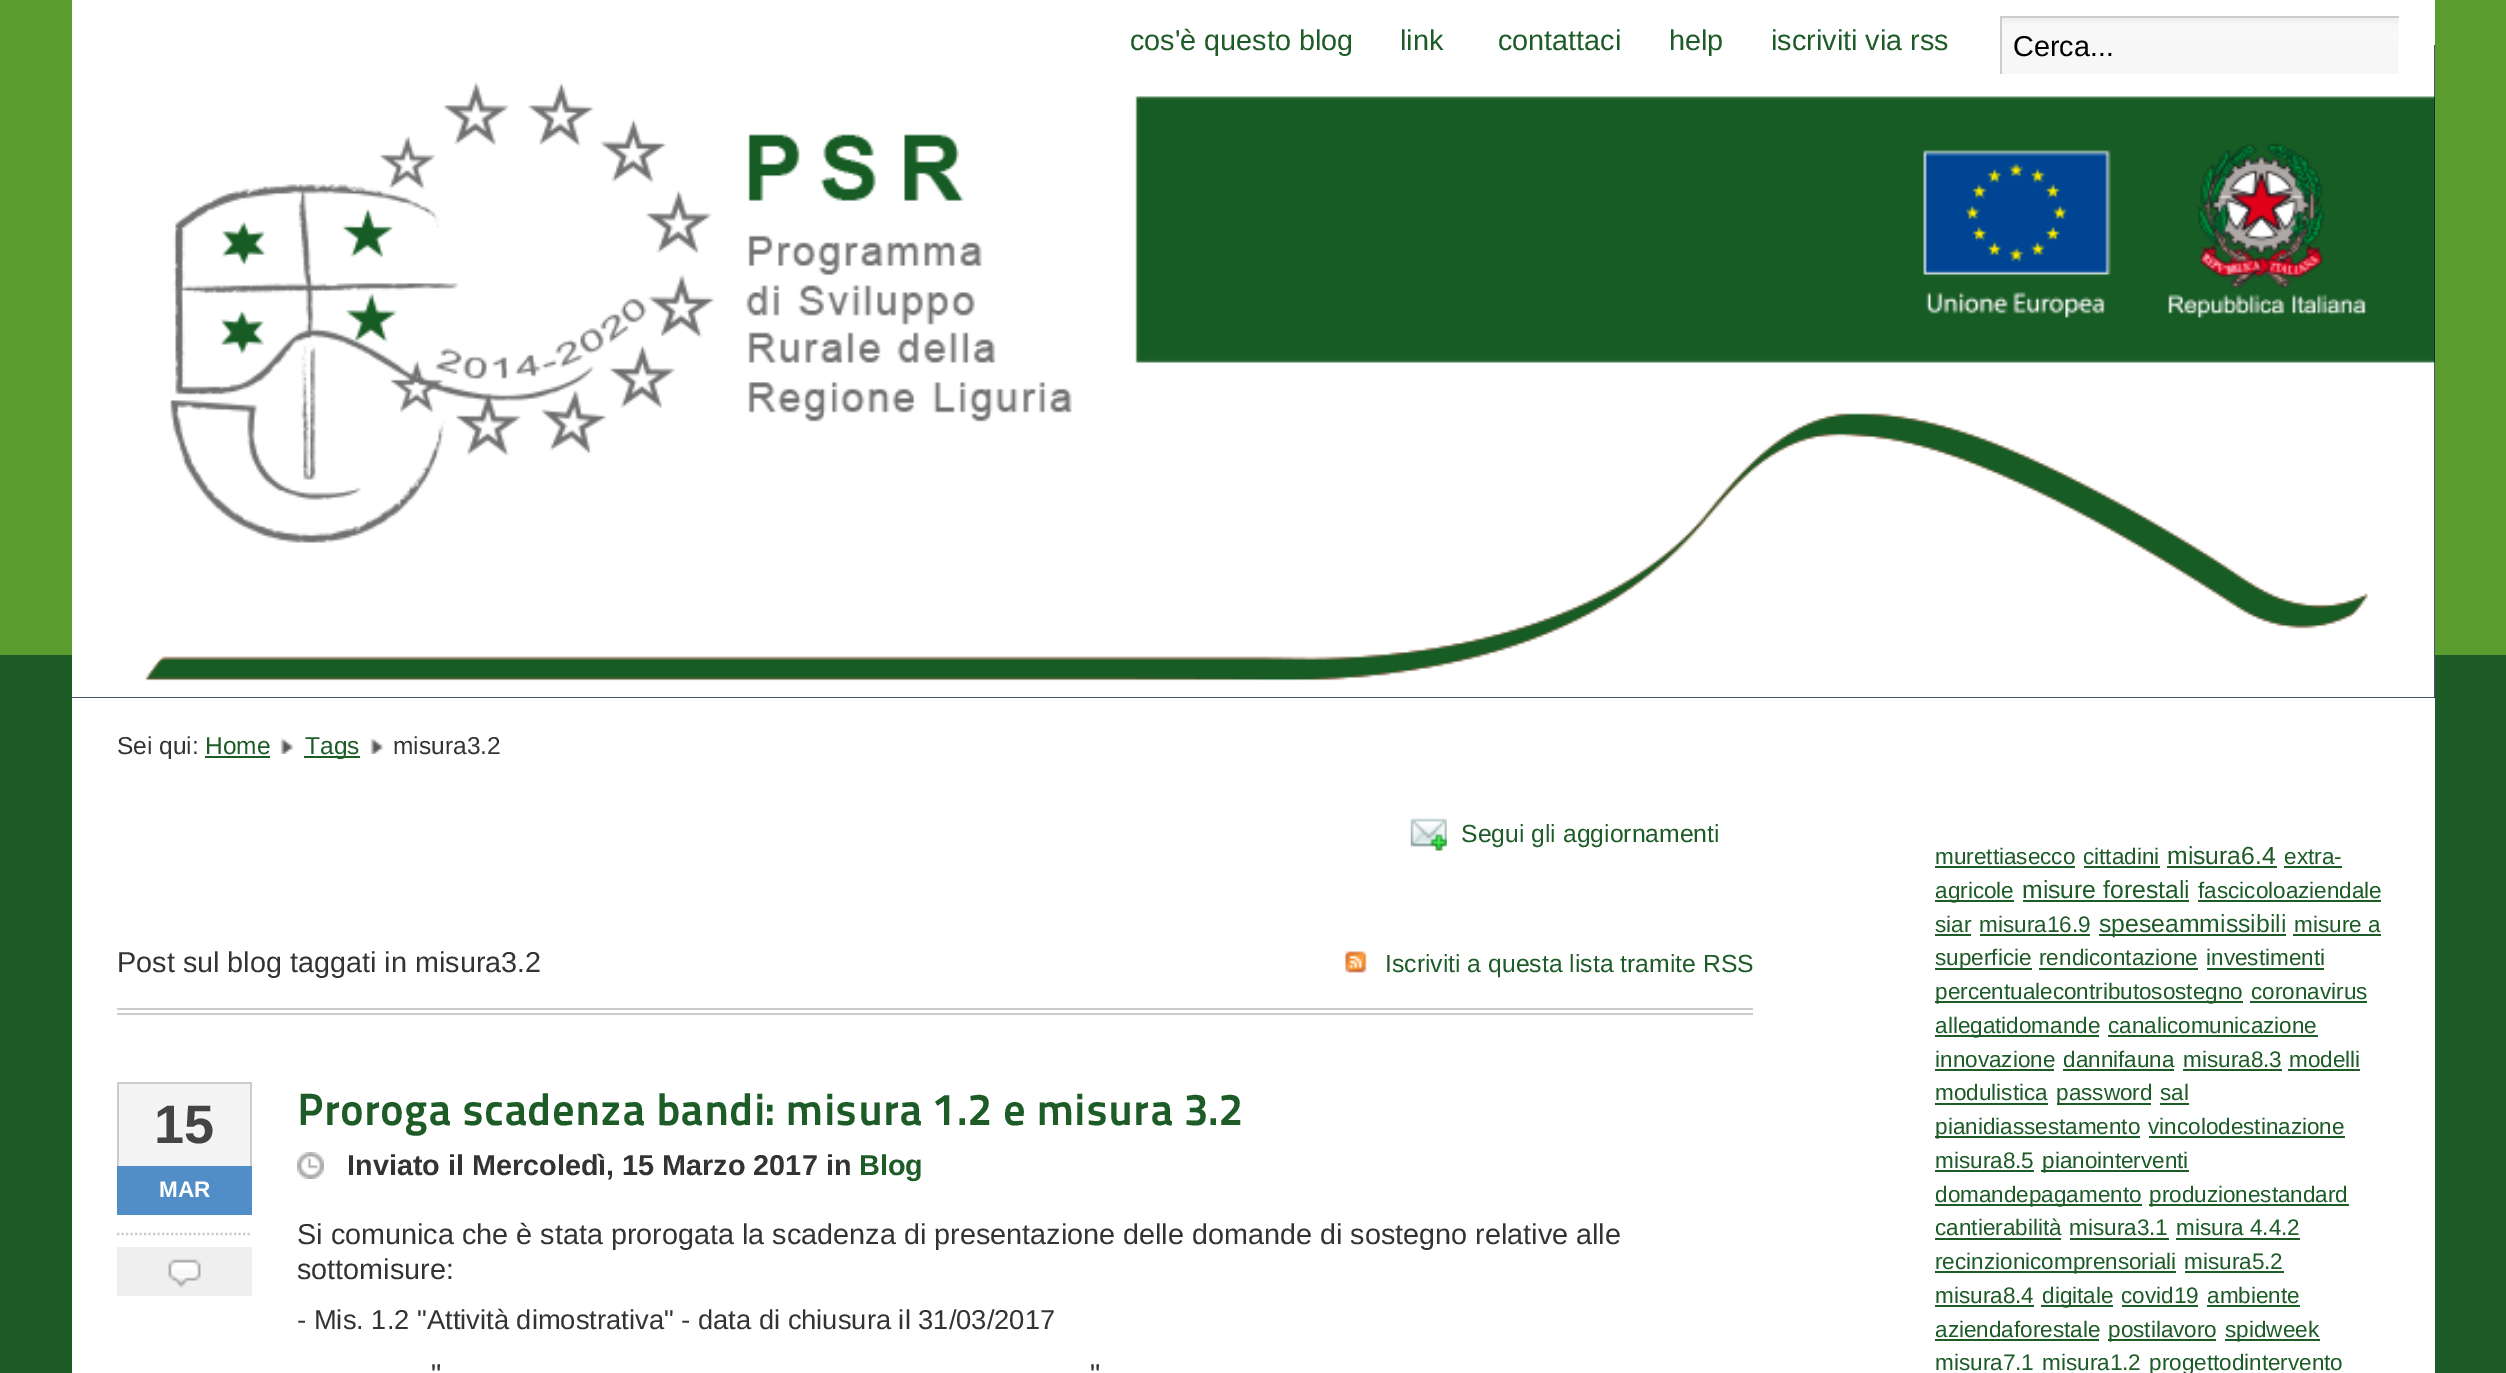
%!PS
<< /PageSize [2506 1373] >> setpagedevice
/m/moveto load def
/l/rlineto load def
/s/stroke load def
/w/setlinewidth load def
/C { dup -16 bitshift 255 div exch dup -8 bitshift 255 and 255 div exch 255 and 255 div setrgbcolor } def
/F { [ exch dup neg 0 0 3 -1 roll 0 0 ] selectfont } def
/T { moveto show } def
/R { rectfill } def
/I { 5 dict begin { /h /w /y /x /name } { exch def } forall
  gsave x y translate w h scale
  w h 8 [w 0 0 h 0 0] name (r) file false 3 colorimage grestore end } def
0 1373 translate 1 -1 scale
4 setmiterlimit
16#1D5B27 C
0 0 2506 1373 R
16#5A9C2D C
0 0 2506 655 R
16#FFFFFF C
72 0 2363 1373 R
16#0C1A3E C
72 45 2363 653 R
(2.rgb) 72 45 2363 653 I
/LiberationSans-Regular 28.8 F
16#1D5B27 C
(cos'è questo blog) 1130 50 T
(link) 1400 50 T
(contattaci) 1498 50 T
(help) 1669 50 T
(iscriviti via rss) 1771 50 T
(1.rgb) 2002 18 397 56 I
16#CCCCCC C
2000 16 399 2 R
2000 16 2 58 R
16#000000 C
(Cerca...) 2013 56 T
/LiberationSans-Regular 24.5 F
16#333333 C
(Sei qui:) 117 754 T
16#1D5B27 C
(Home) 205 754 T
205 756 65 2 R
(3.rgb) 280 738 14 16 I
304 756 56 2 R
(Tags) 305 754 T
(4.rgb) 370 738 14 16 I
16#333333 C
(misura3.2) 393 754 T
(5.rgb) 1410 818 37 33 I
/LiberationSans-Regular 24.75 F
16#1D5B27 C
(Segui gli aggiornamenti) 1461 842 T
16#CCCCCC C
117 1008 1636 2 R
117 1013 1636 2 R
/LiberationSans-Regular 28.8 F
16#333333 C
(Post sul blog taggati in misura3.2) 117 972 T
(6.rgb) 1345 951 22 22 I
/LiberationSans-Regular 24.75 F
16#1D5B27 C
(Iscriviti a questa lista tramite RSS) 1385 972 T
16#F4F4F4 C
119 1084 131 82 R
16#CCCCCC C
117 1082 135 2 R
250 1082 2 84 R
117 1082 2 84 R
/LiberationSans-Bold 54 F
16#444444 C
(15) 154 1143 T
16#518EC7 C
117 1166 135 49 R
/LiberationSans-Bold 22.5 F
16#FFFFFF C
(MAR) 159 1197 T
16#CCCCCC C
2.2 w
[2.25 2.25] 0 setdash
117 1234 m 135 0 l s
16#EFEFEF C
117 1247 135 49 R
(7.rgb) 168 1259 33 29 I
/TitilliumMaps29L-ExtraBold 45 F
16#1D5B27 C
(Proroga scadenza bandi: misura 1.2 e misura 3.2) 297 1125 T
(8.rgb) 297 1152 27 27 I
/LiberationSans-Bold 28.8 F
16#333333 C
(Inviato il Mercoledì, 15 Marzo 2017 in) 347 1175 T
16#1D5B27 C
(Blog) 859 1175 T
/LiberationSans-Regular 28.8 F
16#333333 C
(Si comunica che è stata prorogata la scadenza di presentazione delle domande di sostegno relative alle) 297 1244 T
(sottomisure:) 297 1279 T
/LiberationSans-Regular 27.35 F
(- Mis. 1.2 "Attività dimostrativa" - data di chiusura il 31/03/2017) 297 1329 T
/LiberationSans-Regular 28.8 F
(") 431 1384 T
(") 1090 1384 T
/LiberationSans-Regular 22.5 F
16#1D5B27 C
(murettiasecco) 1935 864 T
1935 866 140 2 R
(cittadini) 2083 864 T
2084 866 76 2 R
/LiberationSans-Regular 24.75 F
(misura6.4) 2167 864 T
2167 866 110 2 R
/LiberationSans-Regular 22.5 F
(extra-) 2284 864 T
2284 866 58 2 R
1935 900 79 2 R
(agricole) 1935 898 T
/LiberationSans-Regular 24.75 F
(misure forestali) 2022 898 T
2023 900 166 2 R
/LiberationSans-Regular 22.5 F
(fascicoloaziendale) 2198 898 T
2198 900 183 2 R
(siar) 1935 932 T
1935 934 36 2 R
(misura16.9) 1979 932 T
1980 934 110 2 R
2099 934 187 2 R
/LiberationSans-Regular 24.75 F
(speseammissibili) 2099 932 T
/LiberationSans-Regular 22.5 F
(misure a) 2294 932 T
2293 934 88 2 R
1935 968 97 2 R
(superficie) 1935 965 T
(rendicontazione) 2039 965 T
2039 968 159 2 R
(investimenti) 2206 965 T
2207 968 117 2 R
1935 1001 308 2 R
(percentualecontributosostegno) 1935 999 T
(coronavirus) 2251 999 T
2250 1001 117 2 R
1935 1035 164 2 R
(allegatidomande) 1935 1033 T
(canalicomunicazione) 2108 1033 T
2108 1035 210 2 R
(innovazione) 1935 1067 T
1935 1069 119 2 R
(dannifauna) 2063 1067 T
2063 1069 111 2 R
(misura8.3) 2183 1067 T
2183 1069 99 2 R
(modelli) 2289 1067 T
2288 1069 72 2 R
(modulistica) 1935 1100 T
1935 1103 113 2 R
2057 1103 94 2 R
(password) 2056 1100 T
(sal) 2160 1100 T
2160 1103 29 2 R
1935 1136 205 2 R
(pianidiassestamento) 1935 1134 T
(vincolodestinazione) 2148 1134 T
2149 1136 196 2 R
(misura8.5) 1935 1168 T
1935 1170 99 2 R
2041 1170 148 2 R
(pianointerventi) 2042 1168 T
1935 1204 207 2 R
(domandepagamento) 1935 1202 T
2149 1204 200 2 R
(produzionestandard) 2149 1202 T
(cantierabilità) 1935 1235 T
1935 1238 126 2 R
(misura3.1) 2069 1235 T
2070 1238 99 2 R
(misura 4.4.2) 2176 1235 T
2176 1238 124 2 R
1935 1271 241 2 R
(recinzionicomprensoriali) 1935 1269 T
(misura5.2) 2184 1269 T
2185 1271 99 2 R
(misura8.4) 1935 1303 T
1935 1305 99 2 R
2041 1305 72 2 R
(digitale) 2042 1303 T
(covid19) 2121 1303 T
2122 1305 76 2 R
(ambiente) 2207 1303 T
2207 1305 93 2 R
(aziendaforestale) 1935 1337 T
1935 1339 164 2 R
2108 1339 108 2 R
(postilavoro) 2108 1337 T
2225 1339 95 2 R
(spidweek) 2225 1337 T
(misura7.1) 1935 1370 T
(misura1.2) 2042 1370 T
(progettodintervento) 2149 1370 T
showpage
